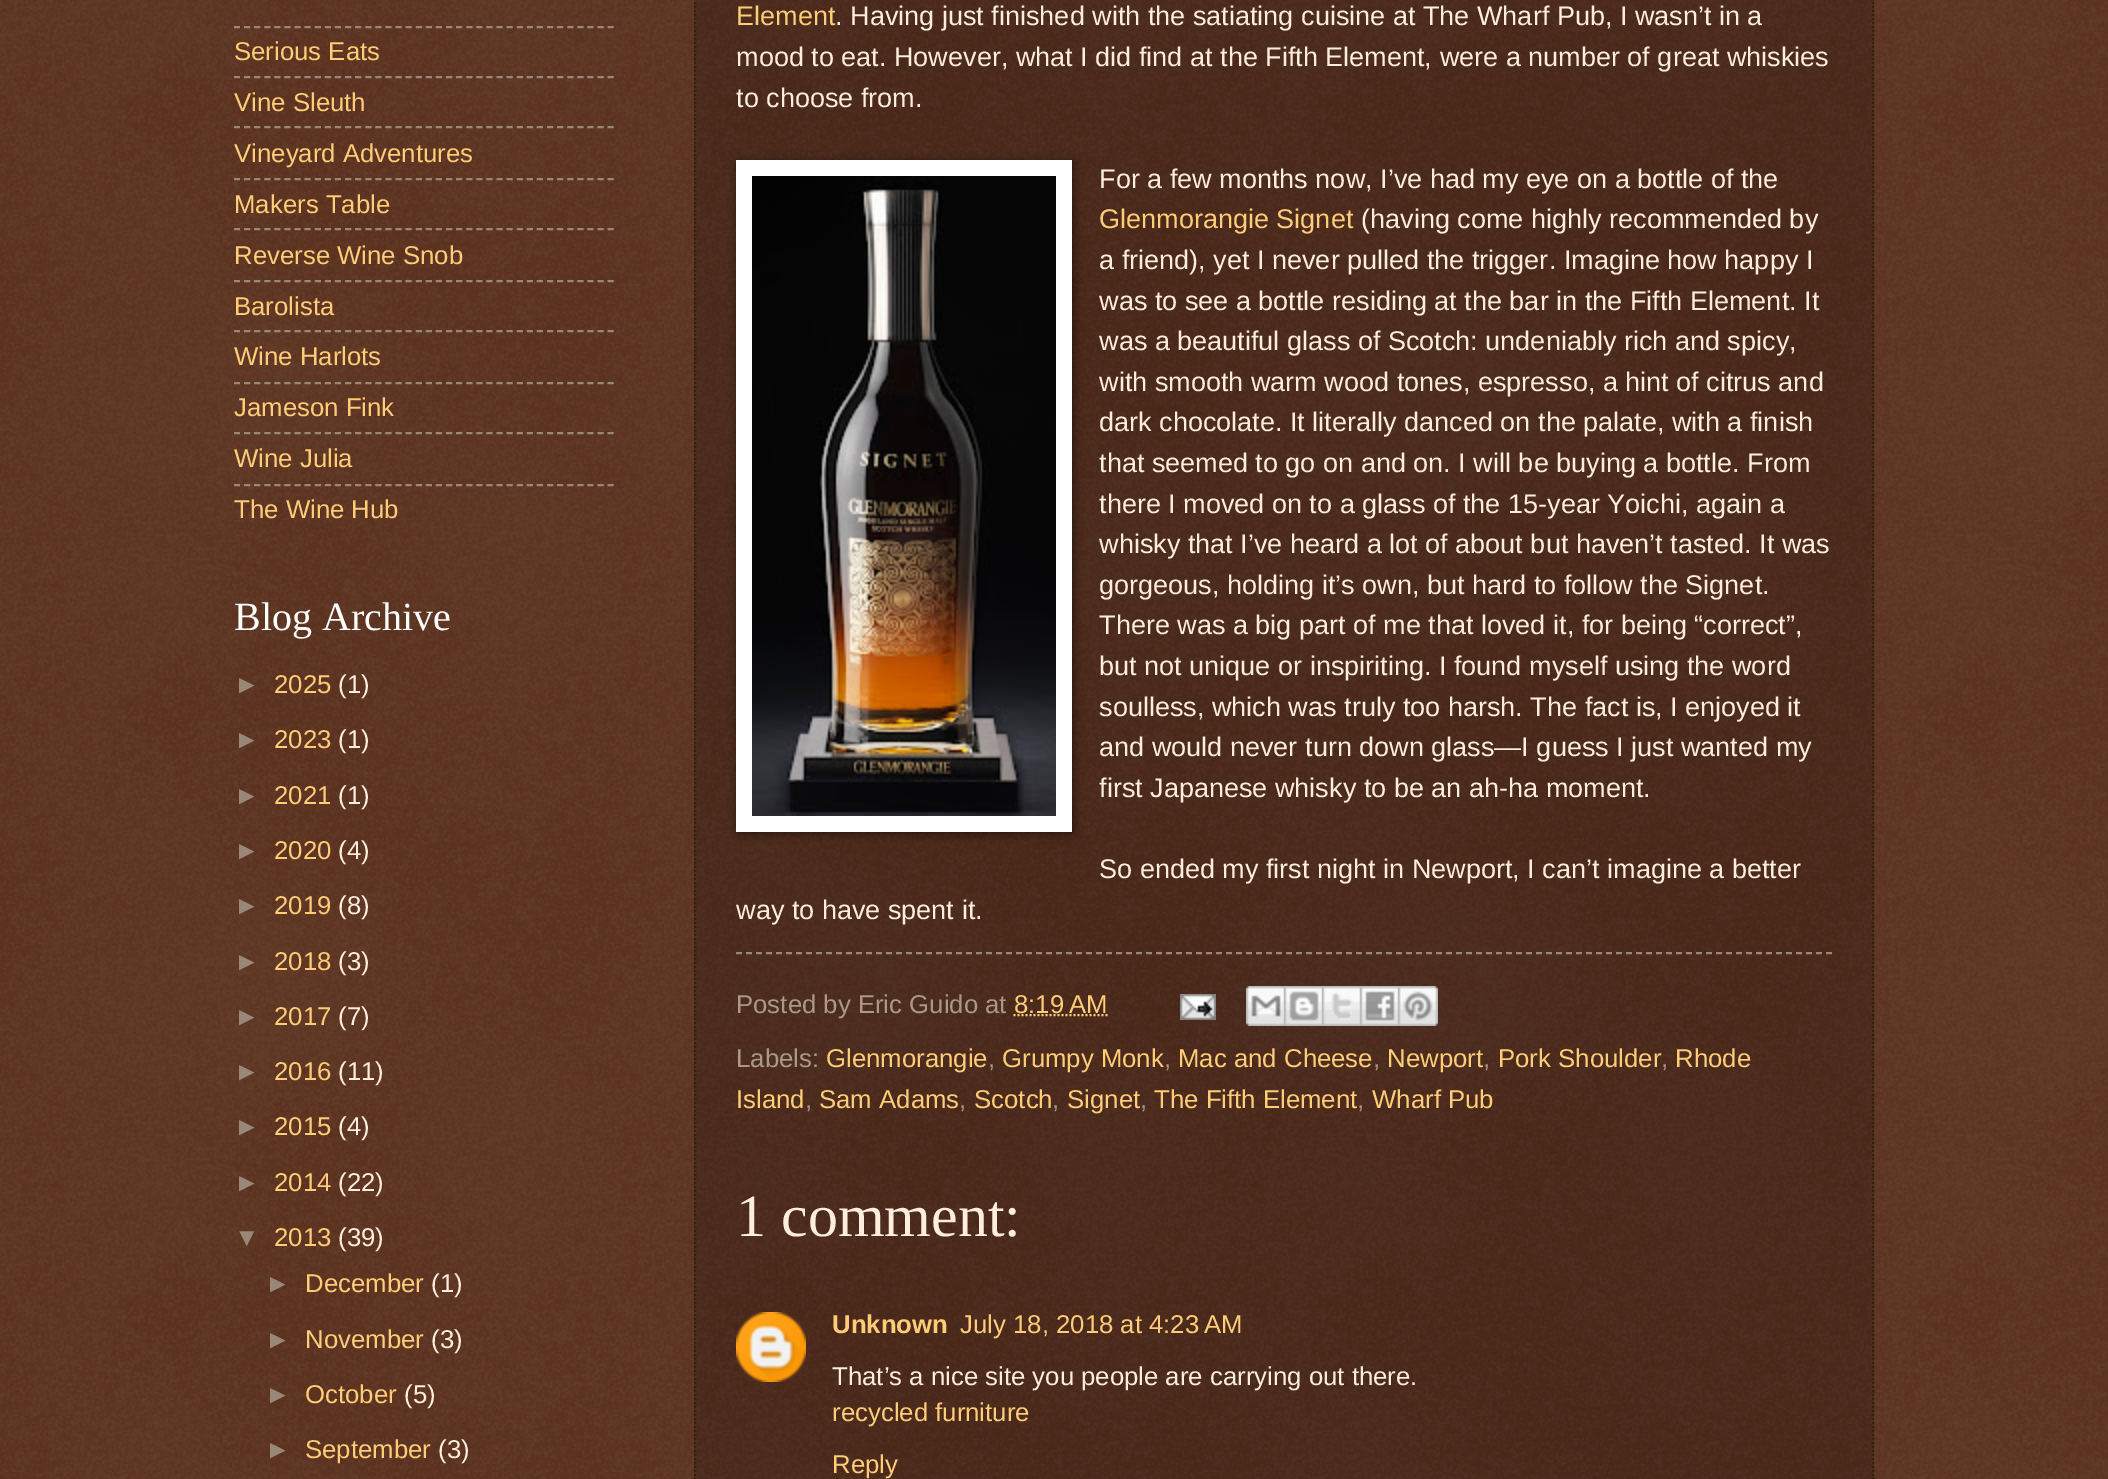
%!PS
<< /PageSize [2108 1479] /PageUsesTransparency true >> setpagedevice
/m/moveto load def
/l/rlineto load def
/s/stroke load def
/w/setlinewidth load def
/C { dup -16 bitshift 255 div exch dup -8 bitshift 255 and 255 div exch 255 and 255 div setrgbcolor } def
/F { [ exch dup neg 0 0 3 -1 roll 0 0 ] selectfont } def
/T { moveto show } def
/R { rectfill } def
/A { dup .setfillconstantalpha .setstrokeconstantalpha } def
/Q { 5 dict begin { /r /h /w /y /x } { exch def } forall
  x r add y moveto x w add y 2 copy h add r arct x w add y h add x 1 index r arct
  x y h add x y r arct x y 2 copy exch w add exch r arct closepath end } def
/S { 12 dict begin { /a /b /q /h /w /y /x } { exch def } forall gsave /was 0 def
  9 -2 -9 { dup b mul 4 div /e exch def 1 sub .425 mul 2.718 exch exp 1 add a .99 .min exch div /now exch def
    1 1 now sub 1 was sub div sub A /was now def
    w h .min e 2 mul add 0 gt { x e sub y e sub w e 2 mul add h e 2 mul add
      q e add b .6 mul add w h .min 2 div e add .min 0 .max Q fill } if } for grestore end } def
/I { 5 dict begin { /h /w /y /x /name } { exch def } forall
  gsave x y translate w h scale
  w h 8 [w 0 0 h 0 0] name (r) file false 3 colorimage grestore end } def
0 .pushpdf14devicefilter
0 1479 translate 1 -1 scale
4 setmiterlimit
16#441500 C
0 0 2108 1479 R
(1.rgb) 0 0 2108 1479 I
16#998877 C
2 w
[6 4.1] 0 setdash
234 27 m 380 0 l s
/LiberationSans-Regular 25.75 F
16#FFCC77 C
(Serious Eats) 234 60 T
16#998877 C
234 77 m 380 0 l s
16#FFCC77 C
(Vine Sleuth) 234 111 T
16#998877 C
234 127 m 380 0 l s
16#FFCC77 C
(Vineyard Adventures) 234 162 T
16#998877 C
234 179 m 380 0 l s
16#FFCC77 C
(Makers Table) 234 213 T
16#998877 C
234 229 m 380 0 l s
16#FFCC77 C
(Reverse Wine Snob) 234 264 T
16#998877 C
234 281 m 380 0 l s
16#FFCC77 C
(Barolista) 234 315 T
16#998877 C
234 331 m 380 0 l s
16#FFCC77 C
(Wine Harlots) 234 365 T
16#998877 C
234 383 m 380 0 l s
16#FFCC77 C
(Jameson Fink) 234 416 T
16#998877 C
234 433 m 380 0 l s
16#FFCC77 C
(Wine Julia) 234 467 T
16#998877 C
234 485 m 380 0 l s
16#FFCC77 C
(The Wine Hub) 234 518 T
/LiberationSerif-Regular 40 F
16#FFFFFF C
(Blog Archive) 234 630 T
/LiberationSans-Regular 25.75 F
16#998877 C
(►) 234 693 T
16#FFCC77 C
(2025) 274 693 T
16#FFEEDD C
(\(1\)) 338 693 T
16#998877 C
(►) 234 748 T
16#FFCC77 C
(2023) 274 748 T
16#FFEEDD C
(\(1\)) 338 748 T
16#998877 C
(►) 234 804 T
16#FFCC77 C
(2021) 274 804 T
16#FFEEDD C
(\(1\)) 338 804 T
16#998877 C
(►) 234 859 T
16#FFCC77 C
(2020) 274 859 T
16#FFEEDD C
(\(4\)) 338 859 T
16#998877 C
(►) 234 914 T
16#FFCC77 C
(2019) 274 914 T
16#FFEEDD C
(\(8\)) 338 914 T
16#998877 C
(►) 234 970 T
16#FFCC77 C
(2018) 274 970 T
16#FFEEDD C
(\(3\)) 338 970 T
16#998877 C
(►) 234 1025 T
16#FFCC77 C
(2017) 274 1025 T
16#FFEEDD C
(\(7\)) 338 1025 T
16#998877 C
(►) 234 1080 T
16#FFCC77 C
(2016) 274 1080 T
16#FFEEDD C
(\(11\)) 338 1080 T
16#998877 C
(►) 234 1135 T
16#FFCC77 C
(2015) 274 1135 T
16#FFEEDD C
(\(4\)) 338 1135 T
16#998877 C
(►) 234 1191 T
16#FFCC77 C
(2014) 274 1191 T
16#FFEEDD C
(\(22\)) 338 1191 T
16#998877 C
(▼) 234 1246 T
16#FFCC77 C
(2013) 274 1246 T
16#FFEEDD C
(\(39\)) 338 1246 T
16#998877 C
(►) 265 1292 T
16#FFCC77 C
(December) 305 1292 T
16#FFEEDD C
(\(1\)) 431 1292 T
16#998877 C
(►) 265 1348 T
16#FFCC77 C
(November) 305 1348 T
16#FFEEDD C
(\(3\)) 431 1348 T
16#998877 C
(►) 265 1403 T
16#FFCC77 C
(October) 305 1403 T
16#FFEEDD C
(\(5\)) 404 1403 T
16#998877 C
(►) 265 1458 T
16#FFCC77 C
(September) 305 1458 T
16#FFEEDD C
(\(3\)) 438 1458 T
0.2 A
16#000000 C
694 0 1180 1479 R
1 A
16#332211 C
[2 2] 0 setdash
1873 -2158 m 0 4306 l s
695 -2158 m 0 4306 l s
/LiberationSans-Regular 27.05 F
16#FFCC77 C
(Element) 736 25 T
16#FFEEDD C
(. Having just finished with the satiating cuisine at The Wharf Pub, I wasn’t in a) 835 25 T
(mood to eat. However, what I did find at the Fifth Element, were a number of great whiskies) 736 66 T
(to choose from.) 736 107 T
16#000000 C
738 162 336 672 0 5 .5 S
16#FFFFFF C
736 160 336 672 R
(2.rgb) 752 176 304 640 I
16#FFEEDD C
(For a few months now, I’ve had my eye on a bottle of the) 1099 188 T
16#FFCC77 C
(Glenmorangie Signet) 1099 228 T
16#FFEEDD C
(\(having come highly recommended by) 1361 228 T
(a friend\), yet I never pulled the trigger. Imagine how happy I) 1099 269 T
(was to see a bottle residing at the bar in the Fifth Element.) 1099 310 T
(It) 1804 310 T
(was a beautiful glass of Scotch: undeniably rich and spicy,) 1099 350 T
(with smooth warm wood tones, espresso, a hint of citrus and) 1099 391 T
(dark chocolate. It literally danced on the palate, with a finish) 1099 431 T
(that seemed to go on and on. I will be buying a bottle. From) 1099 472 T
(there I moved on to a glass of the 15-year Yoichi, again a) 1099 513 T
(whisky that I’ve heard a lot of about but haven’t tasted.) 1099 553 T
(It was) 1759 553 T
(gorgeous, holding it’s own, but hard to follow the Signet.) 1099 594 T
(There was a big part of me that loved it, for being “correct”,) 1099 634 T
(but not unique or inspiriting. I found myself using the word) 1099 675 T
(soulless, which was truly too harsh. The fact is, I enjoyed it) 1099 716 T
(and would never turn down glass—I guess I just wanted my) 1099 756 T
(first Japanese whisky to be an ah-ha moment.) 1099 797 T
(So ended my first night in Newport, I can’t imagine a better) 1099 878 T
(way to have spent it.) 736 919 T
16#998877 C
[6 4] 0 setdash
736 953 m 1096 0 l s
/LiberationSans-Regular 25.75 F
16#AA9988 C
(Posted by Eric Guido at) 736 1013 T
16#FFCC77 C
(8:19 AM) 1014 1013 T
[2 2] 0 setdash
1013.5 1015 m 94 0 l s
(3.rgb) 1180 994 36 26 I
(4.rgb) 1246 986 38 40 I
(5.rgb) 1284 986 38 40 I
(6.rgb) 1322 986 38 40 I
(7.rgb) 1360 986 38 40 I
(8.rgb) 1398 986 40 40 I
16#AA9988 C
(Labels:) 736 1067 T
16#FFCC77 C
(Glenmorangie) 826 1067 T
16#AA9988 C
(,) 988 1067 T
16#FFCC77 C
(Grumpy Monk) 1002 1067 T
16#AA9988 C
(,) 1164 1067 T
16#FFCC77 C
(Mac and Cheese) 1178 1067 T
16#AA9988 C
(,) 1373 1067 T
16#FFCC77 C
(Newport) 1387 1067 T
16#AA9988 C
(,) 1483 1067 T
16#FFCC77 C
(Pork Shoulder) 1498 1067 T
16#AA9988 C
(,) 1661 1067 T
16#FFCC77 C
(Rhode) 1675 1067 T
(Island) 736 1108 T
16#AA9988 C
(,) 805 1108 T
16#FFCC77 C
(Sam Adams) 819 1108 T
16#AA9988 C
(,) 959 1108 T
16#FFCC77 C
(Scotch) 974 1108 T
16#AA9988 C
(,) 1052 1108 T
16#FFCC77 C
(Signet) 1067 1108 T
16#AA9988 C
(,) 1140 1108 T
16#FFCC77 C
(The Fifth Element) 1154 1108 T
16#AA9988 C
(,) 1357 1108 T
16#FFCC77 C
(Wharf Pub) 1372 1108 T
/LiberationSerif-Regular 60 F
16#FFEEDD C
(1 comment:) 736 1236 T
(9.rgb) 736 1312 70 70 I
/LiberationSans-Bold 25.75 F
16#FFCC77 C
(Unknown) 832 1333 T
/LiberationSans-Regular 25.75 F
(July 18, 2018 at 4:23 AM) 960 1333 T
16#FFEEDD C
(That’s a nice site you people are carrying out there.) 832 1385 T
16#FFCC77 C
(recycled furniture) 832 1421 T
(Reply) 832 1473 T
.poppdf14devicefilter showpage
